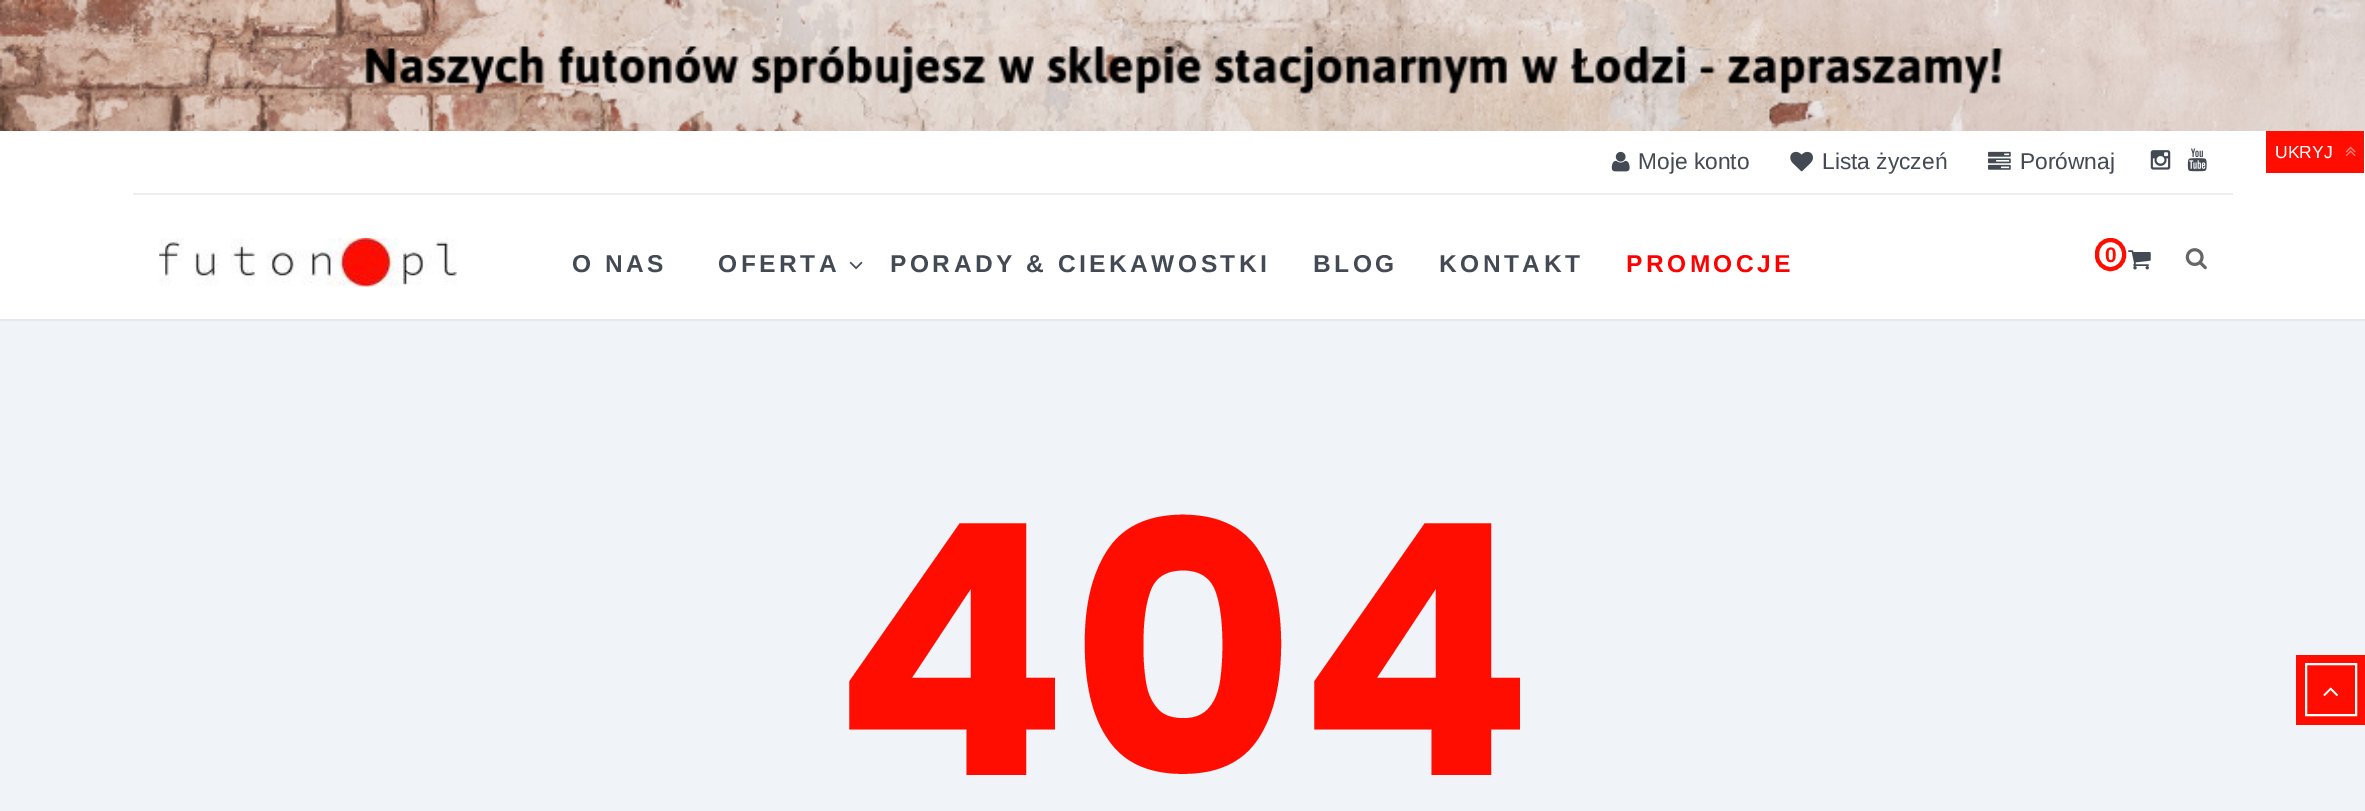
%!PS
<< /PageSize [2365 811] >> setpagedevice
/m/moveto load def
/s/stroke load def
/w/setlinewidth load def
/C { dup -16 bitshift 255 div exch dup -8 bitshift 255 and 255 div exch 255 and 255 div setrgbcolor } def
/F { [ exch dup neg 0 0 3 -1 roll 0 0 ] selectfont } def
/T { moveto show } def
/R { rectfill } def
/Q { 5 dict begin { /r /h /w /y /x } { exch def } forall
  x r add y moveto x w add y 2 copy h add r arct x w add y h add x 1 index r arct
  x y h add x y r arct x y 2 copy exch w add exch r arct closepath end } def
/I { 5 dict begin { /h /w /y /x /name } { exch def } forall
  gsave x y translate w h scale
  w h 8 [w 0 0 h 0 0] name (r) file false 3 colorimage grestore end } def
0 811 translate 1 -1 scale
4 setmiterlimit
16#F0F3F8 C
0 0 2365 811 R
16#E4E9EF C
0 319 2365 2 R
16#FFFFFF C
0 131 2365 188 R
16#EEEEEE C
133 193 2100 2 R
(1.rgb) 1611 151 19 21 I
/LiberationSans-Regular 22.75 F
16#434A54 C
(Moje konto) 1638 169 T
(2.rgb) 1790 151 23 21 I
(Lista życzeń) 1822 169 T
(3.rgb) 1988 151 23 19 I
(Porównaj) 2020 169 T
(4.rgb) 2150 150 21 20 I
(5.rgb) 2187 148 20 24 I
(6.rgb) 159 238 298 49 I
/LiberationSans-Bold 24.5 F
572 272 m 3.5 0 (O NAS) ashow
718 272 m 3.5 0 (OFERTA) ashow
(7.rgb) 849 261 14 9 I
890 272 m 3.5 0 (PORADY & CIEKAWOSTKI) ashow
1313 272 m 3.5 0 (BLOG) ashow
1439 272 m 3.5 0 (KONTAKT) ashow
16#FF0000 C
1626 272 m 3.5 0 (PROMOCJE) ashow
16#FF0D01 C
4 w
2097 240 27 29 13.5 Q s
/LiberationSans-Bold 21 F
(0) 2105 262 T
(8.rgb) 2128 250 23 20 I
(9.rgb) 2185 248 22 22 I
(10.rgb) 0 0 2365 131 I
2266 131 98 42 R
/LiberationSans-Regular 17.5 F
16#FFFFFF C
(UKRYJ) 2275 158 T
(11.rgb) 2345 146 11 10 I
/Poppins-Bold 350 F
16#FF0D01 C
(404) 832 775 T
2296 655 69 70 R
16#FFFFFF C
2 w
2306 664 50 51 rectstroke
(12.rgb) 2323 687 15 9 I
showpage
